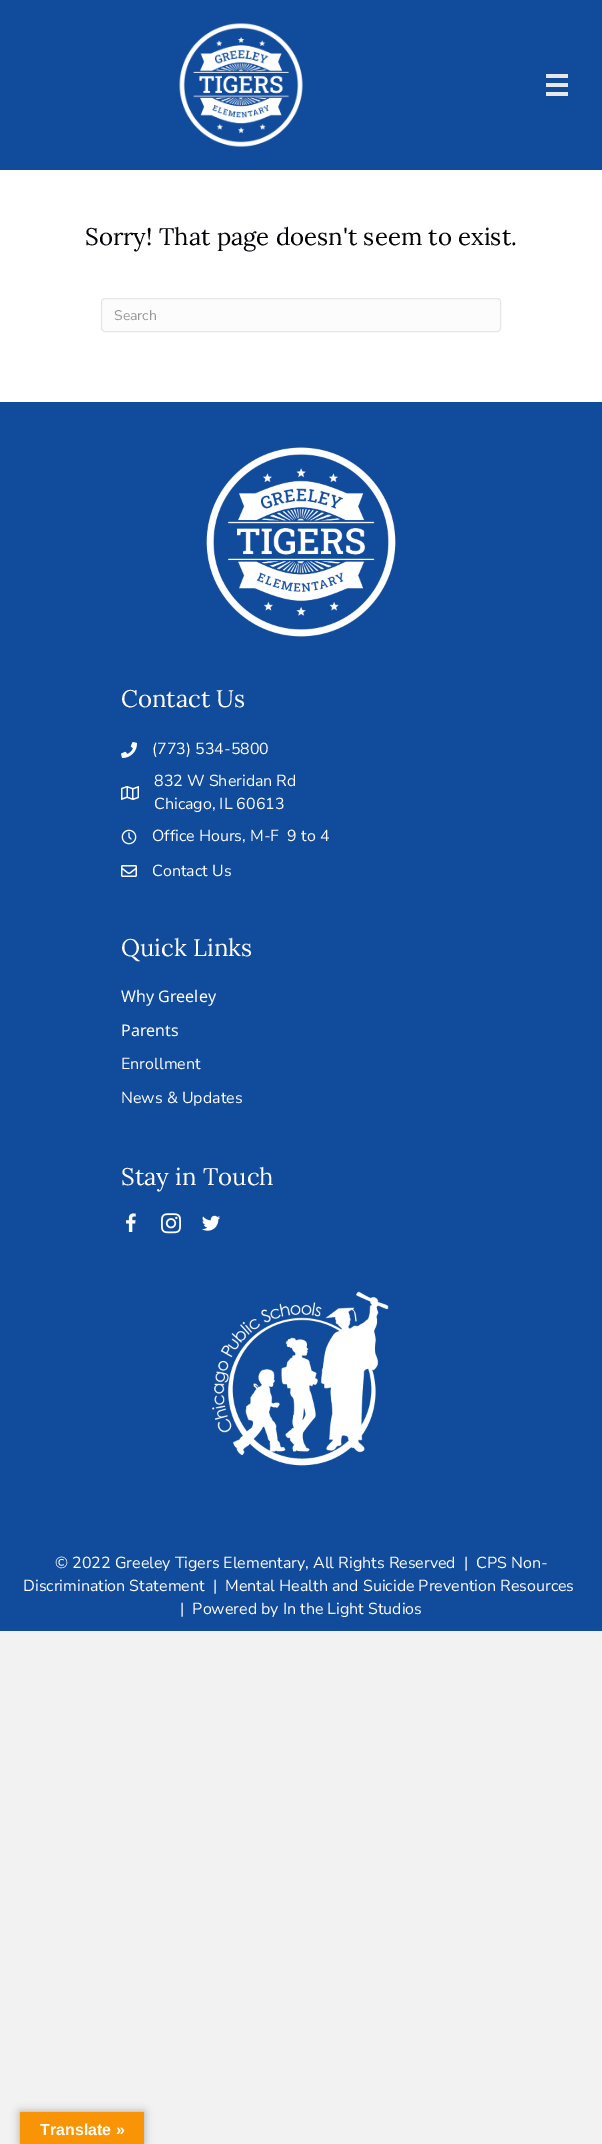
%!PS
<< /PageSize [602 2144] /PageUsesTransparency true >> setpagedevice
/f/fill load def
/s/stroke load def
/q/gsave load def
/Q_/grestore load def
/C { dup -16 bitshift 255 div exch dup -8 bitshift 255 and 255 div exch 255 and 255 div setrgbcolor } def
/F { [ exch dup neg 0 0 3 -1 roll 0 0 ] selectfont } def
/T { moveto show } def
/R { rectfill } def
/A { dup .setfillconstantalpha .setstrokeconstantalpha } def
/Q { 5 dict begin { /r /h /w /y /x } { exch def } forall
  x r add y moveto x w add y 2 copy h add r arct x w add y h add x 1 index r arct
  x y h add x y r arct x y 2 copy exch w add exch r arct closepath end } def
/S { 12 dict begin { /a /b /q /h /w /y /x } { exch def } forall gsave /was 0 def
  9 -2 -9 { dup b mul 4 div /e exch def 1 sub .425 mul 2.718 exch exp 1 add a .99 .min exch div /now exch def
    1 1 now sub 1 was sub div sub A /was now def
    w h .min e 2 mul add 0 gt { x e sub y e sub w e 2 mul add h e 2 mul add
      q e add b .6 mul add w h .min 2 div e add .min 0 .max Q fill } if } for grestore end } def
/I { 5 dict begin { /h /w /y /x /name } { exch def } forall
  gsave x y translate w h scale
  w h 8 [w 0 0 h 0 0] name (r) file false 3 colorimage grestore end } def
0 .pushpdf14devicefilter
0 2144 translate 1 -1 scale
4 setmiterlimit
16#F2F2F2 C
0 0 602 2144 R
16#114B9C C
0 0 602 170 R
(1.rgb) 179 23 124 124 I
16#E8E8E8 C
546 74 22 4 R
546 83 22 4 R
546 92 22 4 R
16#FFFFFF C
0 170 602 232 R
/Lora-Regular 24 F
16#010205 C
(Sorry! That page doesn't seem to exist.) 85 245 T
16#FCFCFC C
101.5 298.5 399 33 3.5 Q q f Q_
16#E6E6E6 C
s
/NunitoSans-Regular 14 F
16#989899 C
(Search) 114 320 T
16#114B9C C
0 402 602 1229 R
(2.rgb) 206 447 190 190 I
/Lora-Regular 24 F
16#FFFEFB C
(Contact Us) 121 707 T
(3.rgb) 121 742 16 16 I
/NunitoSans-Regular 16 F
(\(773\) 534-5800) 152 754 T
(4.rgb) 121 786 18 14 I
(832 W Sheridan Rd) 154 786 T
(Chicago, IL 60613) 154 809 T
(5.rgb) 121 829 16 16 I
(Office Hours, M-F  9 to 4) 152 841 T
(6.rgb) 121 865 16 12 I
(Contact Us) 152 876 T
/Lora-Regular 24 F
(Quick Links) 121 956 T
/NotoSans-Regular 16 F
(Why Greeley) 121 1002 T
(Parents) 121 1036 T
/NunitoSans-Regular 16 F
(Enrollment) 121 1069 T
(News & Updates) 121 1103 T
/Lora-Regular 24 F
(Stay in Touch) 121 1185 T
(7.rgb) 126 1213 10 19 I
(8.rgb) 161 1213 20 21 I
(9.rgb) 202 1215 18 16 I
(10.rgb) 212 1291 177 175 I
/NunitoSans-Regular 16 F
(© 2022 Greeley Tigers Elementary, All Rights Reserved  |) 55 1568 T
(CPS Non-) 476 1568 T
(Discrimination Statement) 23 1591 T
(|) 213 1591 T
(Mental Health and Suicide Prevention Resources) 225 1591 T
(|  Powered by In the Light Studios) 180 1614 T
16#000000 C
20 2112 124 32 0 4.5 .3 S
16#F89406 C
20 2112 124 32 R
/LiberationSans-Bold 16 F
16#FFFEFB C
(Translate ») 40 2135 T
.poppdf14devicefilter showpage
